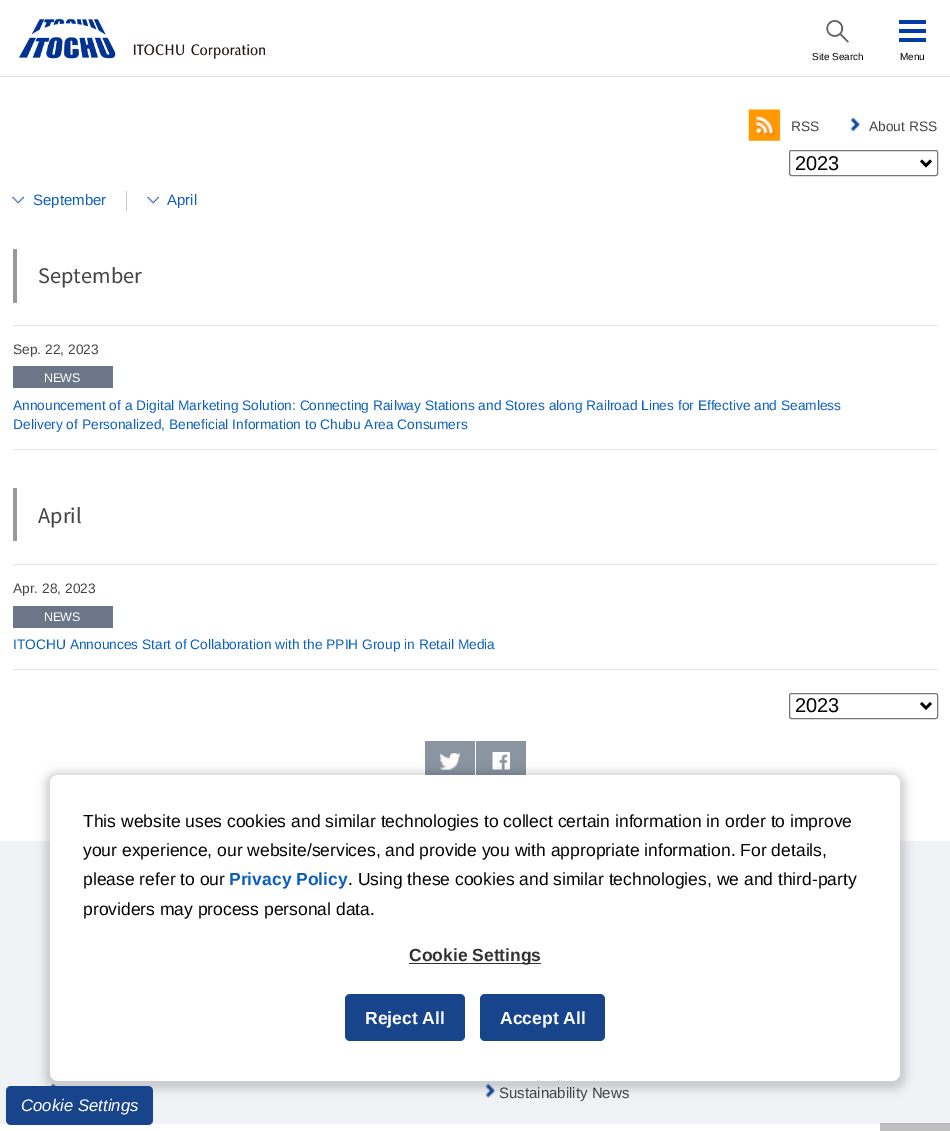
%!PS
<< /PageSize [950 1131] /PageUsesTransparency true >> setpagedevice
/m/moveto load def
/l/rlineto load def
/f/fill load def
/s/stroke load def
/w/setlinewidth load def
/C { dup -16 bitshift 255 div exch dup -8 bitshift 255 and 255 div exch 255 and 255 div setrgbcolor } def
/F { [ exch dup neg 0 0 3 -1 roll 0 0 ] selectfont } def
/T { moveto show } def
/R { rectfill } def
/A { dup .setfillconstantalpha .setstrokeconstantalpha } def
/Q { 5 dict begin { /r /h /w /y /x } { exch def } forall
  x r add y moveto x w add y 2 copy h add r arct x w add y h add x 1 index r arct
  x y h add x y r arct x y 2 copy exch w add exch r arct closepath end } def
/S { 12 dict begin { /a /b /q /h /w /y /x } { exch def } forall gsave /was 0 def
  9 -2 -9 { dup b mul 4 div /e exch def 1 sub .425 mul 2.718 exch exp 1 add a .99 .min exch div /now exch def
    1 1 now sub 1 was sub div sub A /was now def
    w h .min e 2 mul add 0 gt { x e sub y e sub w e 2 mul add h e 2 mul add
      q e add b .6 mul add w h .min 2 div e add .min 0 .max Q fill } if } for grestore end } def
/I { 5 dict begin { /h /w /y /x /name } { exch def } forall
  gsave x y translate w h scale
  w h 8 [w 0 0 h 0 0] name (r) file false 3 colorimage grestore end } def
0 .pushpdf14devicefilter
0 1131 translate 1 -1 scale
4 setmiterlimit
16#FFFFFF C
0 0 950 1131 R
16#BFBFBF C
880 1124 70 7 R
16#DDDDDD C
0 76 950 1 R
(1.rgb) 18 18 247 41 I
(2.rgb) 826 20 23 23 I
/LiberationSans-Regular 10 F
16#000000 C
(Site Search) 812 60 T
16#003DA5 C
899 20 27 4 R
899 29 27 4 R
899 38 27 4 R
16#000000 C
(Menu) 900 60 T
(3.rgb) 748 109 33 32 I
/LiberationSans-Regular 13.75 F
16#444444 C
(RSS) 791 131 T
(4.rgb) 850 117 10 15 I
(About RSS) 869 131 T
16#767676 C
789.5 150.5 148 25 2 Q s
16#000000 C
2.5 w
921 160.5 m 5 5 l 5 -5 l s
/LiberationSans-Regular 20 F
(2023) 795 170 T
16#CCCCCC C
126 191 1 20 R
(5.rgb) 12 197 12 7 I
/LiberationSans-Regular 15 F
16#0A5FBE C
(September) 33 205 T
(5.rgb) 147 197 12 7 I
(April) 167 205 T
16#999999 C
13 249 4 54 R
/NotoSansJP-Regular 20 F
16#444444 C
(September) 38 283 T
16#E6E6E6 C
13 325 925 1 R
13 449 925 1 R
/LiberationSans-Regular 13.75 F
16#444444 C
(Sep. 22, 2023) 13 354 T
16#6B7789 C
13 366 100 22 R
/LiberationSans-Regular 12.5 F
16#FFFFFF C
44 382 m -.5 0 (NEWS) ashow
/LiberationSans-Regular 13.75 F
16#0A5FBE C
(Announcement of a Digital Marketing Solution: Connecting Railway Stations and Stores along Railroad Lines for Effective and Seamless) 13 410 T
(Delivery of Personalized, Beneficial Information to Chubu Area Consumers) 13 429 T
16#999999 C
13 488 4 53 R
/NotoSansJP-Regular 20 F
16#444444 C
(April) 38 523 T
16#E6E6E6 C
13 564 925 1 R
13 669 925 1 R
/LiberationSans-Regular 13.75 F
16#444444 C
(Apr. 28, 2023) 13 593 T
16#6B7789 C
13 606 100 22 R
/LiberationSans-Regular 12.5 F
16#FFFFFF C
44 621 m -.5 0 (NEWS) ashow
/LiberationSans-Regular 13.75 F
16#0A5FBE C
(ITOCHU Announces Start of Collaboration with the PPIH Group in Retail Media) 13 649 T
16#767676 C
1 w
789.5 693.5 148 25 2 Q s
16#000000 C
2.5 w
921 703 m 5 5 l 5 -5 l s
/LiberationSans-Regular 20 F
(2023) 795 712 T
16#8A95A1 C
425 741 50 34 R
(6.rgb) 440 753 20 17 I
476 741 50 34 R
(7.rgb) 492 752 18 18 I
16#F0F2F5 C
0 841 950 283 R
16#B4B6B8 C
880 1123 70 1 R
(8.rgb) 50 1083 7 3 I
(9.rgb) 485 1083 10 15 I
/LiberationSans-Regular 15 F
16#444444 C
(Sustainability News) 499 1098 T
16#000000 C
46 774 858 314 11 2 .05 S
43 770 865 321 15 4 .1 S
16#FFFFFF C
50 775 850 306 8 Q f
/LiberationSans-Regular 17.5 F
16#000000 C
(This website uses cookies and similar technologies to collect certain information in order to improve) 83 827 T
(your experience, our website/services, and provide you with appropriate information. For details,) 83 856 T
(please refer to our) 83 885 T
/LiberationSans-Bold 17.5 F
16#0A5FBE C
(Privacy Policy) 229 885 T
/LiberationSans-Regular 17.5 F
16#000000 C
(. Using these cookies and similar technologies, we and third-party) 348 885 T
(providers may process personal data.) 83 915 T
16#323232 C
409 963 132 1 R
/LiberationSans-Bold 17.5 F
(Cookie Settings) 409 961 T
16#17448A C
345 994 120 47 5 Q f
16#FFFFFF C
(Reject All) 365 1024 T
16#17448A C
480 994 125 47 5 Q f
16#FFFFFF C
(Accept All) 500 1024 T
16#17448A C
6 1086 147 39 5 Q f
/LiberationSans-Italic 16.75 F
16#FFFFFF C
(Cookie Settings) 21 1111 T
.poppdf14devicefilter showpage
